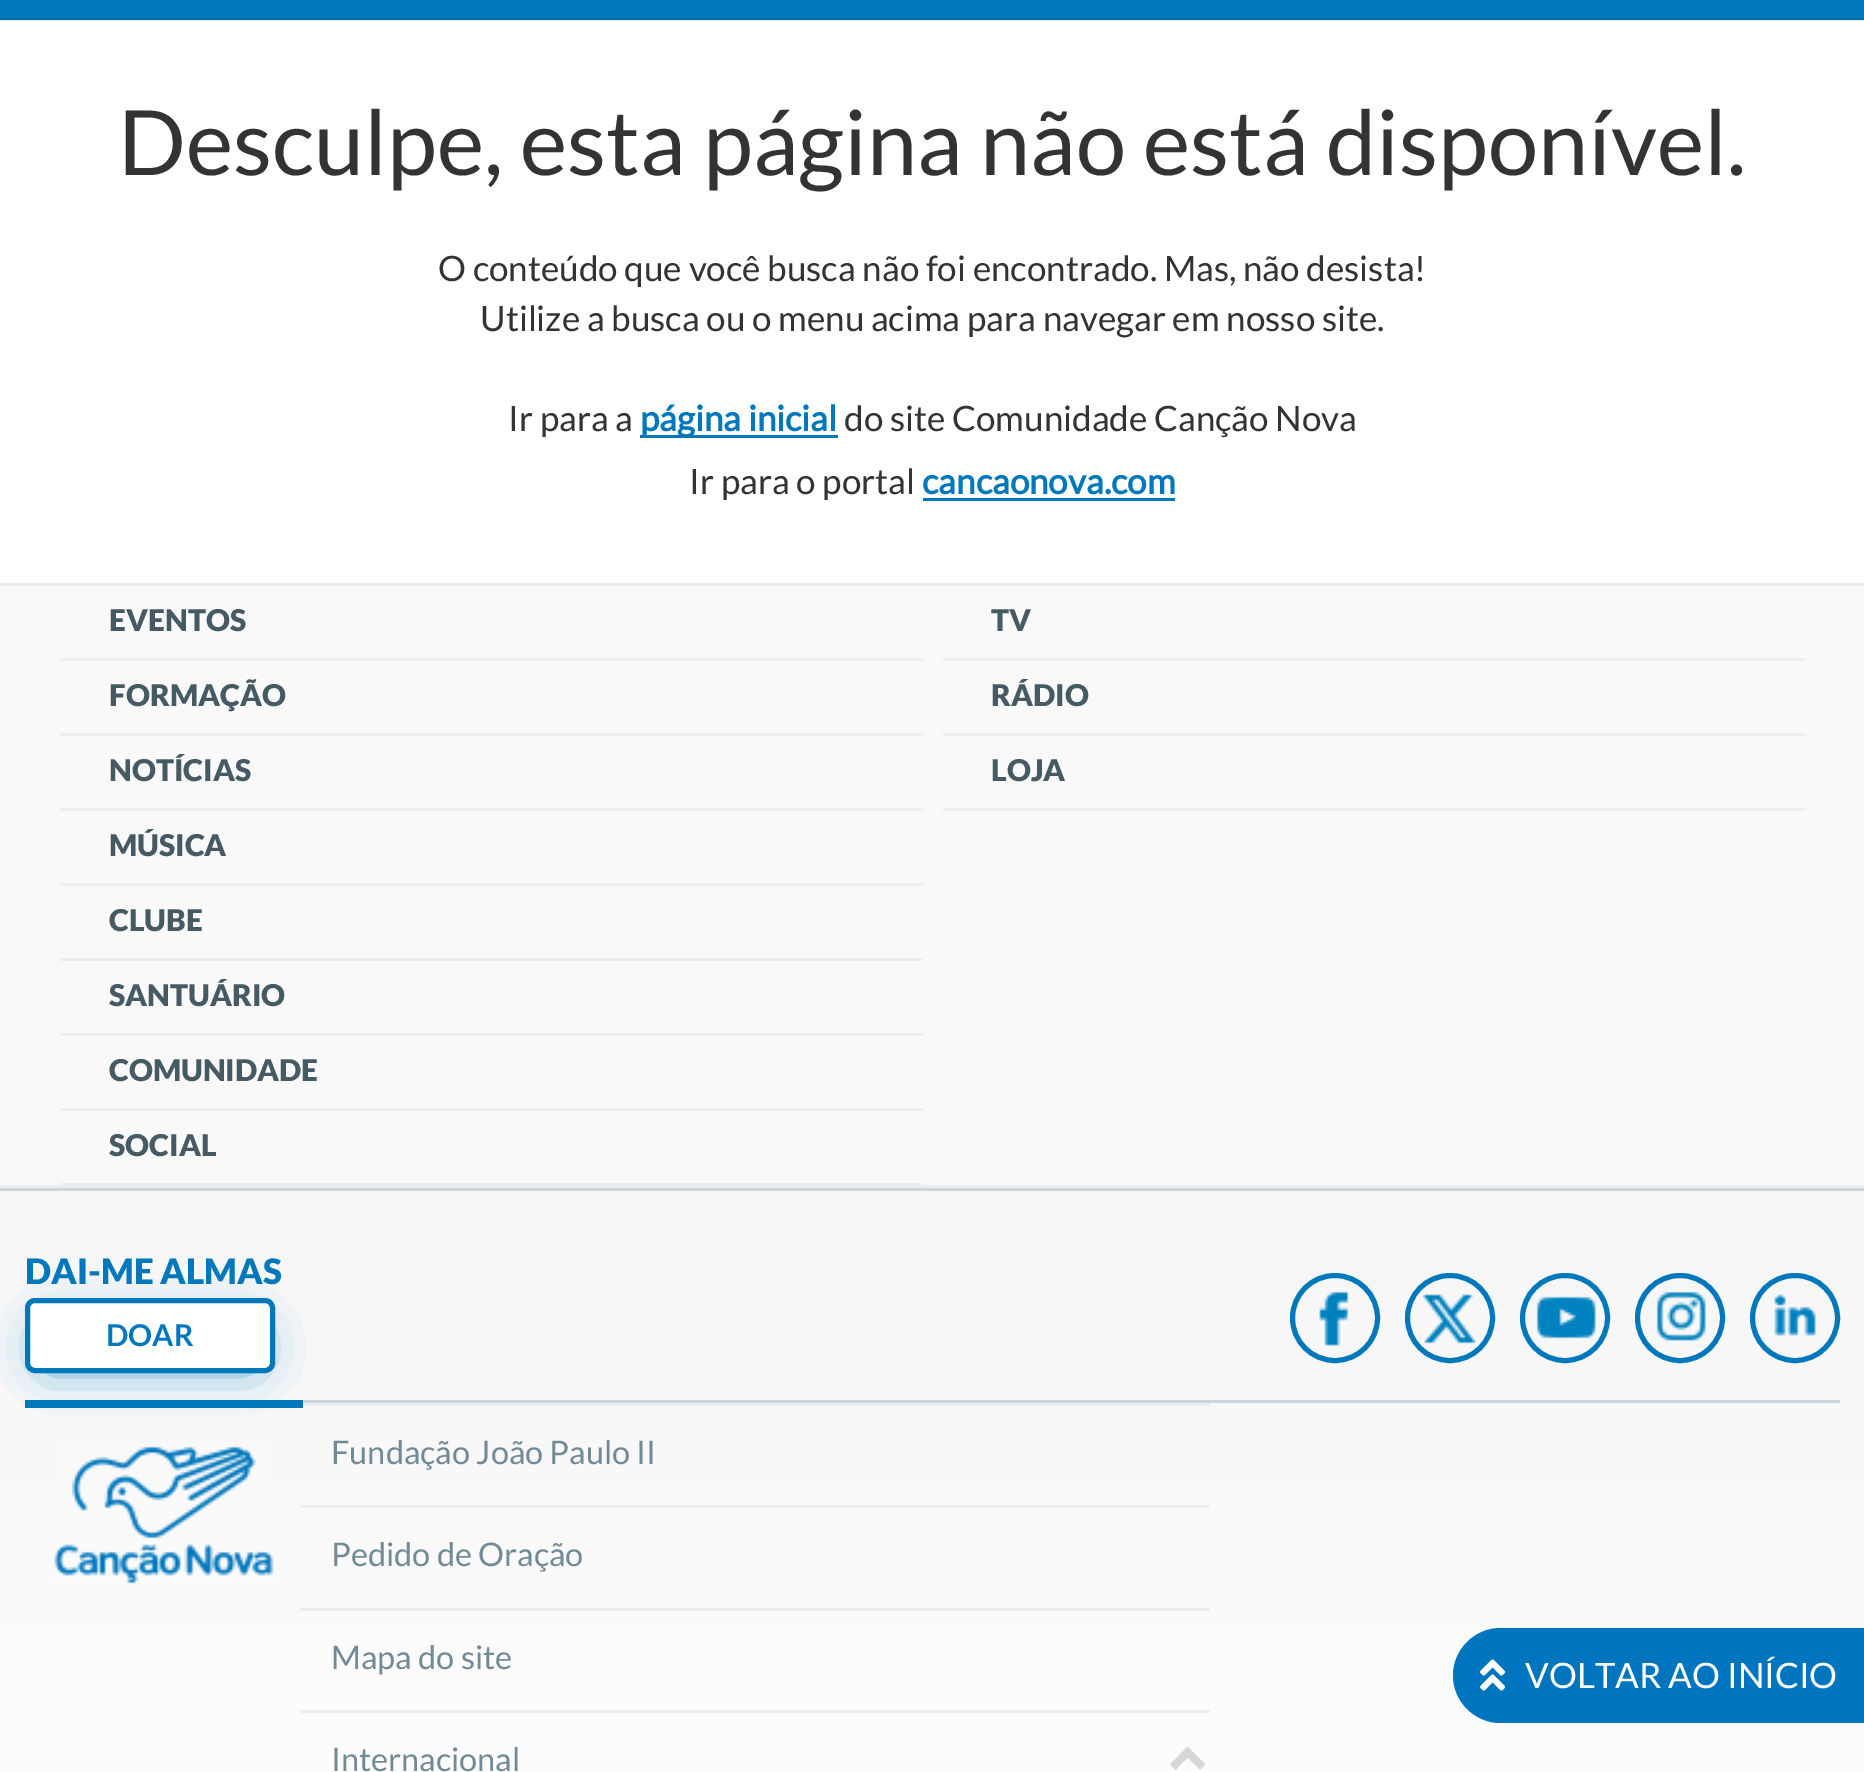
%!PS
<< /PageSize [1864 1772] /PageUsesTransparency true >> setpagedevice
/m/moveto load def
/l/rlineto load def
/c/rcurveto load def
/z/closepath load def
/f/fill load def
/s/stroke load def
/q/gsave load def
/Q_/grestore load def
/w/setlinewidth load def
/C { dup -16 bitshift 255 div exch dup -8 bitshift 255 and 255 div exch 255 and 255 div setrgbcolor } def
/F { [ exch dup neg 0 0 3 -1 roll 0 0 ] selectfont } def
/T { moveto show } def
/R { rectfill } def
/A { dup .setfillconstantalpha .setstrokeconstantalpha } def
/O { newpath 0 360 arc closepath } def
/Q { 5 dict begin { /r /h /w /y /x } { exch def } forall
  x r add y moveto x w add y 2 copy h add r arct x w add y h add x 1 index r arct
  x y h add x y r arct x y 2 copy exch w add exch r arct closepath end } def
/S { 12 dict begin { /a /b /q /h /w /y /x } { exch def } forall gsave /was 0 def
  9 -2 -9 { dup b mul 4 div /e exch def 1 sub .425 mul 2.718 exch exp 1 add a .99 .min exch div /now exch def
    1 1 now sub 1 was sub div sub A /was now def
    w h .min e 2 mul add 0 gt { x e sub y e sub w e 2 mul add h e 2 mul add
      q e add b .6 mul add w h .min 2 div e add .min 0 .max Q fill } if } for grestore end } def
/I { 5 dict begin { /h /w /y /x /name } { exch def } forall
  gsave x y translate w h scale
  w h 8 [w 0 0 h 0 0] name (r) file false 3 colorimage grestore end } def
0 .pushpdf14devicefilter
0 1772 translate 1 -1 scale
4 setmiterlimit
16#0177BC C
0 0 1864 1772 R
16#FFFFFF C
0 20 1864 563 R
0.1 A
16#000000 C
0 18 1864 3 R
/Lato-Regular 90 F
1 A
16#333333 C
(Desculpe, esta página não está disponível.) 118 175 T
/Lato-Regular 35 F
(O conteúdo que você busca não foi encontrado. Mas, não desista!) 438 281 T
(Utilize a busca ou o menu acima para navegar em nosso site.) 480 331 T
(Ir para a) 508 431 T
16#0177BC C
640 435 198 3 R
/Lato-Bold 35 F
(página inicial) 640 431 T
/Lato-Regular 35 F
16#333333 C
(do site Comunidade Canção Nova) 844 431 T
(Ir para o portal) 689 494 T
/Lato-Bold 35 F
16#0177BC C
(cancaonova.com) 922 494 T
923 498 252 3 R
16#F9F9F9 C
0 586 1864 599 R
16#EBEEF0 C
0 583 1864 3 R
0 1185 1864 3 R
60 658 863 3 R
/Lato-Black 30 F
16#455A63 C
(EVENTOS) 109 631 T
16#EBEEF0 C
60 733 863 3 R
16#455A63 C
(FORMAÇÃO) 109 706 T
16#EBEEF0 C
60 808 863 3 R
16#455A63 C
(NOTÍCIAS) 109 781 T
16#EBEEF0 C
60 883 863 3 R
16#455A63 C
(MÚSICA) 109 856 T
16#EBEEF0 C
60 958 863 3 R
16#455A63 C
(CLUBE) 109 931 T
16#EBEEF0 C
60 1033 863 3 R
16#455A63 C
(SANTUÁRIO) 109 1006 T
16#EBEEF0 C
60 1108 863 3 R
16#455A63 C
(COMUNIDADE) 109 1081 T
16#EBEEF0 C
60 1183 863 2 R
16#455A63 C
(SOCIAL) 109 1156 T
16#EBEEF0 C
943 658 862 3 R
16#455A63 C
(TV) 991 631 T
16#EBEEF0 C
943 733 862 3 R
16#455A63 C
(RÁDIO) 991 706 T
16#EBEEF0 C
943 808 862 3 R
16#455A63 C
(LOJA) 991 781 T
q 0 1191 m 1864 0 l 0 581 l -1864 0 l z clip newpath
<< /ShadingType 2 /ColorSpace /DeviceRGB /Coords [933 1190 933 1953] /Extend [true true] /Function << /FunctionType 2 /Domain [0 1] /C0 [.965 .965 .965] /C1 [1 1 1] /N 1 >> >> shfill Q_
16#CED5DA C
0 1188 1864 3 R
/Lato-Black 35 F
16#0177BC C
(DAI-ME ALMAS) 25 1284 T
16#0082C0 C
50 1335 200 25 0 25 1 S
16#FFFFFF C
27.5 1300.5 245 70 7.5 Q q f Q_
16#0177BC C
5 w
s
/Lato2-Bold 30 F
(DOAR) 106 1346 T
1335 1318 42.5 O s
(1.rgb) 1319 1291 30 55 I
1450 1318 42.5 O s
(2.rgb) 1422 1294 54 50 I
1565 1318 42.5 O s
(3.rgb) 1536 1296 60 43 I
1680 1318 42.5 O s
(4.rgb) 1656 1291 50 50 I
1795 1318 42.5 O s
(5.rgb) 1774 1294 42 42 I
(6.rgb) 54 1446 220 138 I
16#EBEEF0 C
300 1403 910 3 R
16#0177BC C
25 1400 278 8 R
16#CED5DA C
303 1400 1537 3 R
/Lato-Regular 32.5 F
16#718A96 C
(Fundação João Paulo II) 331 1464 T
16#EBEEF0 C
300 1505 910 3 R
16#718A96 C
(Pedido de Oração) 331 1566 T
16#EBEEF0 C
300 1608 910 3 R
16#718A96 C
(Mapa do site) 331 1669 T
16#EBEEF0 C
300 1710 910 3 R
16#718A96 C
(Internacional) 331 1771 T
16#D7D7D7 C
1170 1764.5 m 5.5 5.5 l 12 -12.5 l 12.5 12 l 5.5 -5 l -18 -18 l z f
16#0075BF C
1500.5 1628 m 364.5 0 l 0 95 l -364.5 0 l -26 0 -47.5 -21.5 -47.5 -47.5 c 0 -26 21.5 -47.5 47.5 -47.5 c z f
(7.rgb) 1480 1659 25 32 I
/Lato-Regular 35 F
16#FFFFFF C
(VOLTAR AO INÍCIO) 1525 1688 T
.poppdf14devicefilter showpage
